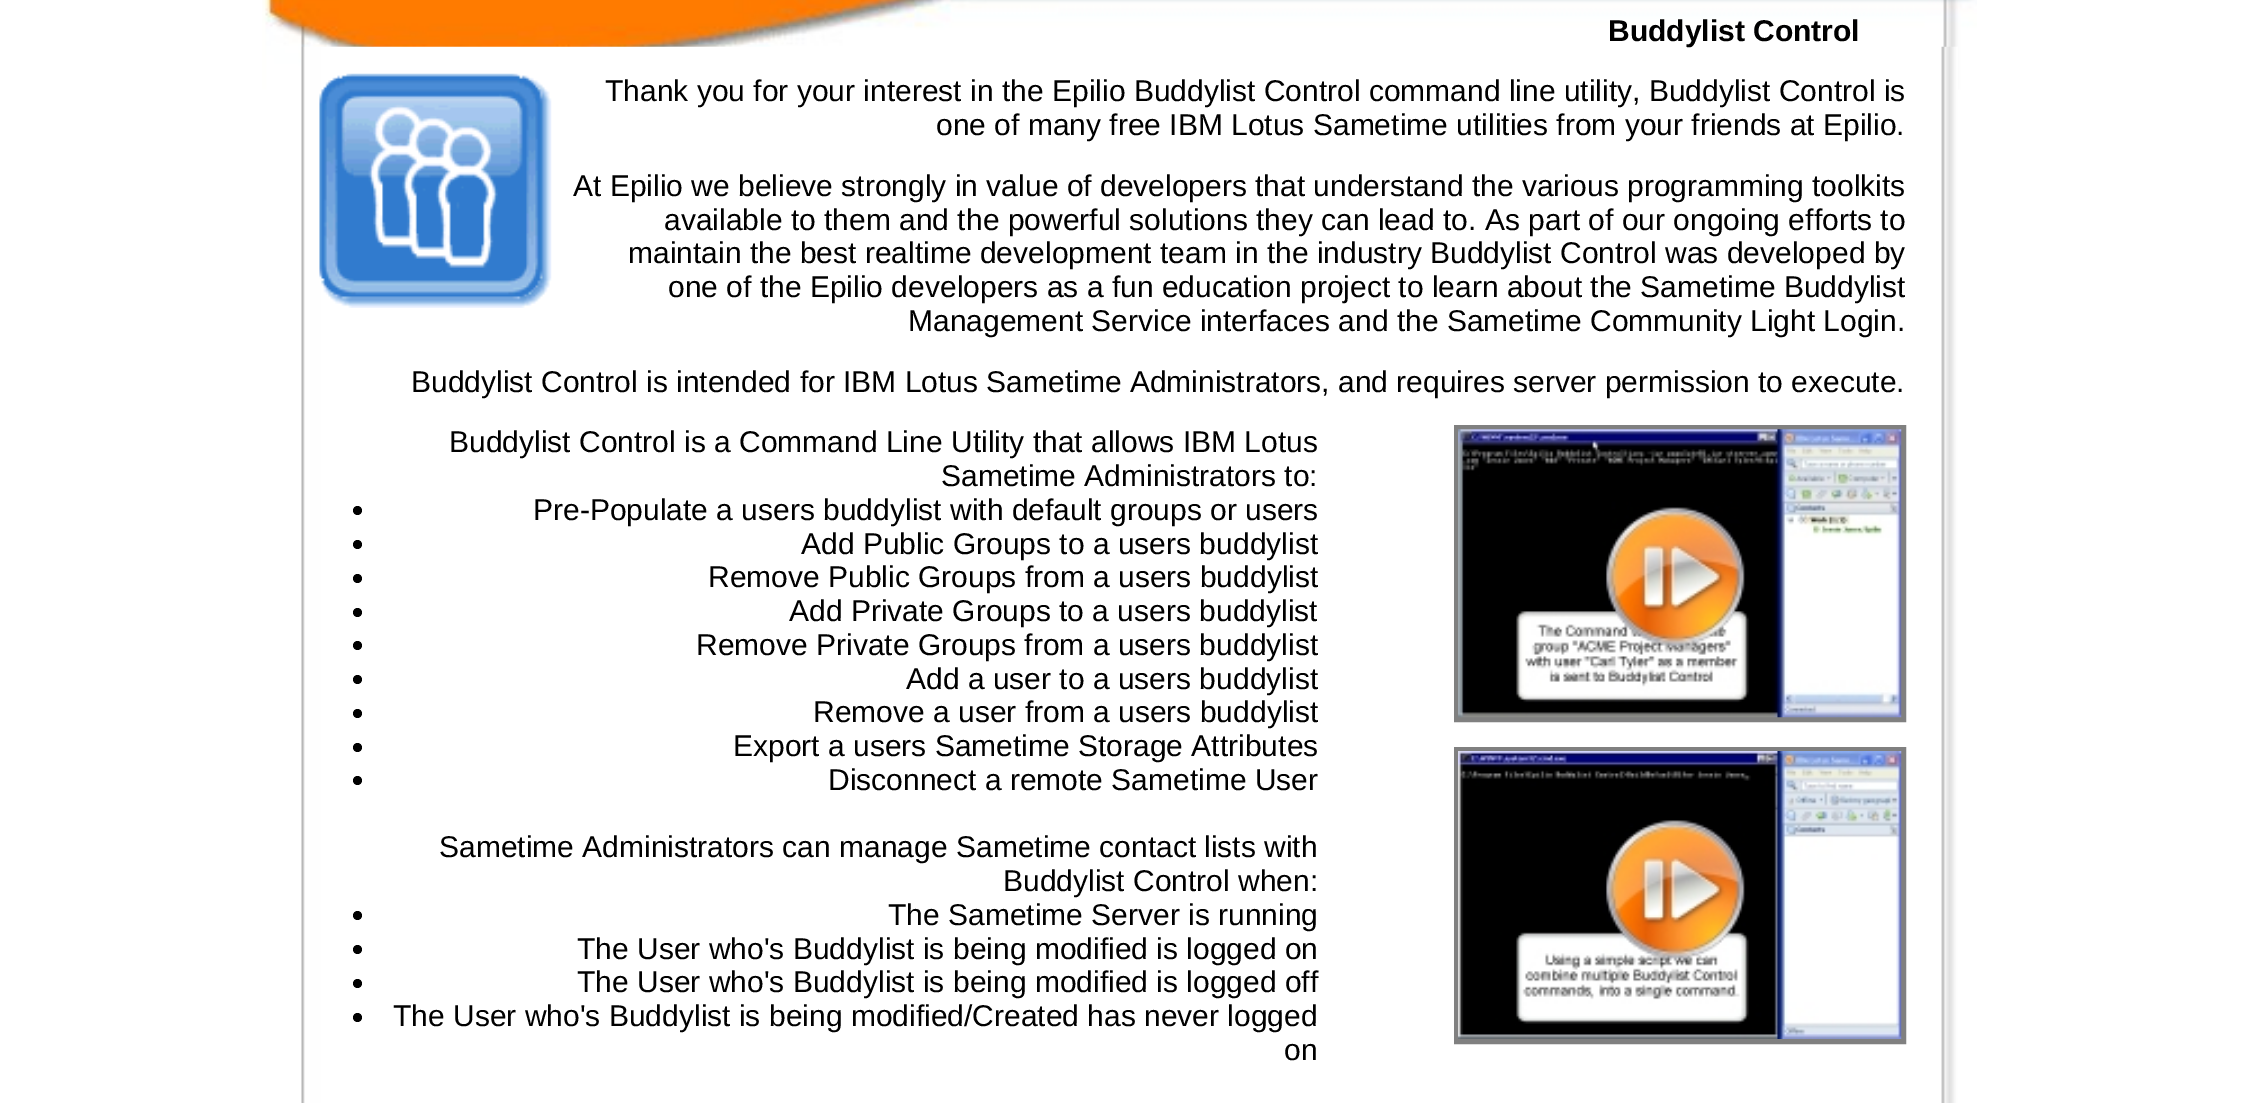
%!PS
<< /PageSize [2256 1103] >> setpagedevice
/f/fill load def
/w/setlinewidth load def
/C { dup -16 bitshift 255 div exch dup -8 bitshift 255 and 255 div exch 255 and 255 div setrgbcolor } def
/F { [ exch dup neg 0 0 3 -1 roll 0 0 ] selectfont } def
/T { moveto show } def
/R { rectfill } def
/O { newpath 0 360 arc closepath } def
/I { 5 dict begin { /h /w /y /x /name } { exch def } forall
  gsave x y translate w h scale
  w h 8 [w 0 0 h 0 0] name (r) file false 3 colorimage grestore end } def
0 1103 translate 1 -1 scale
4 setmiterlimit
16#FFFFFF C
0 0 2256 1103 R
(1.rgb) 262 0 1715 90 I
(2.rgb) 301 46 1657 1057 I
/LiberationSans-Bold 30 F
16#000000 C
(Buddylist Control) 1608 41 T
(3.rgb) 319 73 233 235 I
/LiberationSans-Regular 30 F
(Thank you for your interest in the Epilio Buddylist Control command line utility, Buddylist Control is) 605 101 T
(one of many free IBM Lotus Sametime utilities from your friends at Epilio.) 936 135 T
(At Epilio we believe strongly in value of developers that understand the various programming toolkits) 573 196 T
(available to them and the powerful solutions they can lead to.) 664 230 T
(As part of our ongoing efforts to) 1485 230 T
(maintain the best realtime development team in the industry Buddylist Control was developed by) 628 263 T
(one of the Epilio developers as a fun education project to learn about the Sametime Buddylist) 668 297 T
(Management Service interfaces and the Sametime Community Light Login.) 908 331 T
(Buddylist Control is intended for IBM Lotus Sametime Administrators, and requires server permission to execute.) 411 392 T
(Buddylist Control is a Command Line Utility that allows IBM Lotus) 449 452 T
(Sametime Administrators to:) 941 486 T
357.5 510.5 4.5 O f
(Pre-Populate a users buddylist with default groups or users) 533 520 T
357.5 544.5 4.5 O f
(Add Public Groups to a users buddylist) 801 554 T
357.5 578.5 4.5 O f
(Remove Public Groups from a users buddylist) 708 587 T
357.5 612.5 4.5 O f
(Add Private Groups to a users buddylist) 789 621 T
357.5 645.5 4.5 O f
(Remove Private Groups from a users buddylist) 696 655 T
357.5 679.5 4.5 O f
(Add a user to a users buddylist) 906 689 T
357.5 713.5 4.5 O f
(Remove a user from a users buddylist) 813 722 T
357.5 747.5 4.5 O f
(Export a users Sametime Storage Attributes) 733 756 T
357.5 780.5 4.5 O f
(Disconnect a remote Sametime User) 828 790 T
(Sametime Administrators can manage Sametime contact) 439 857 T
(lists with) 1204 857 T
(Buddylist Control when:) 1003 891 T
357.5 915.5 4.5 O f
(The Sametime Server is running) 888 925 T
357.5 949.5 4.5 O f
(The User who's Buddylist is being modified is logged on) 577 959 T
357.5 983.5 4.5 O f
(The User who's Buddylist is being modified is logged off) 577 992 T
357.5 1017.5 4.5 O f
(The User who's Buddylist is being modified/Created has never logged) 393 1026 T
(on) 1284 1060 T
16#808080 C
5 w
1456.5 427.5 447 292 rectstroke
(4.rgb) 1458 429 444 289 I
1456.5 749.5 447 292 rectstroke
(5.rgb) 1458 751 444 288 I
showpage
